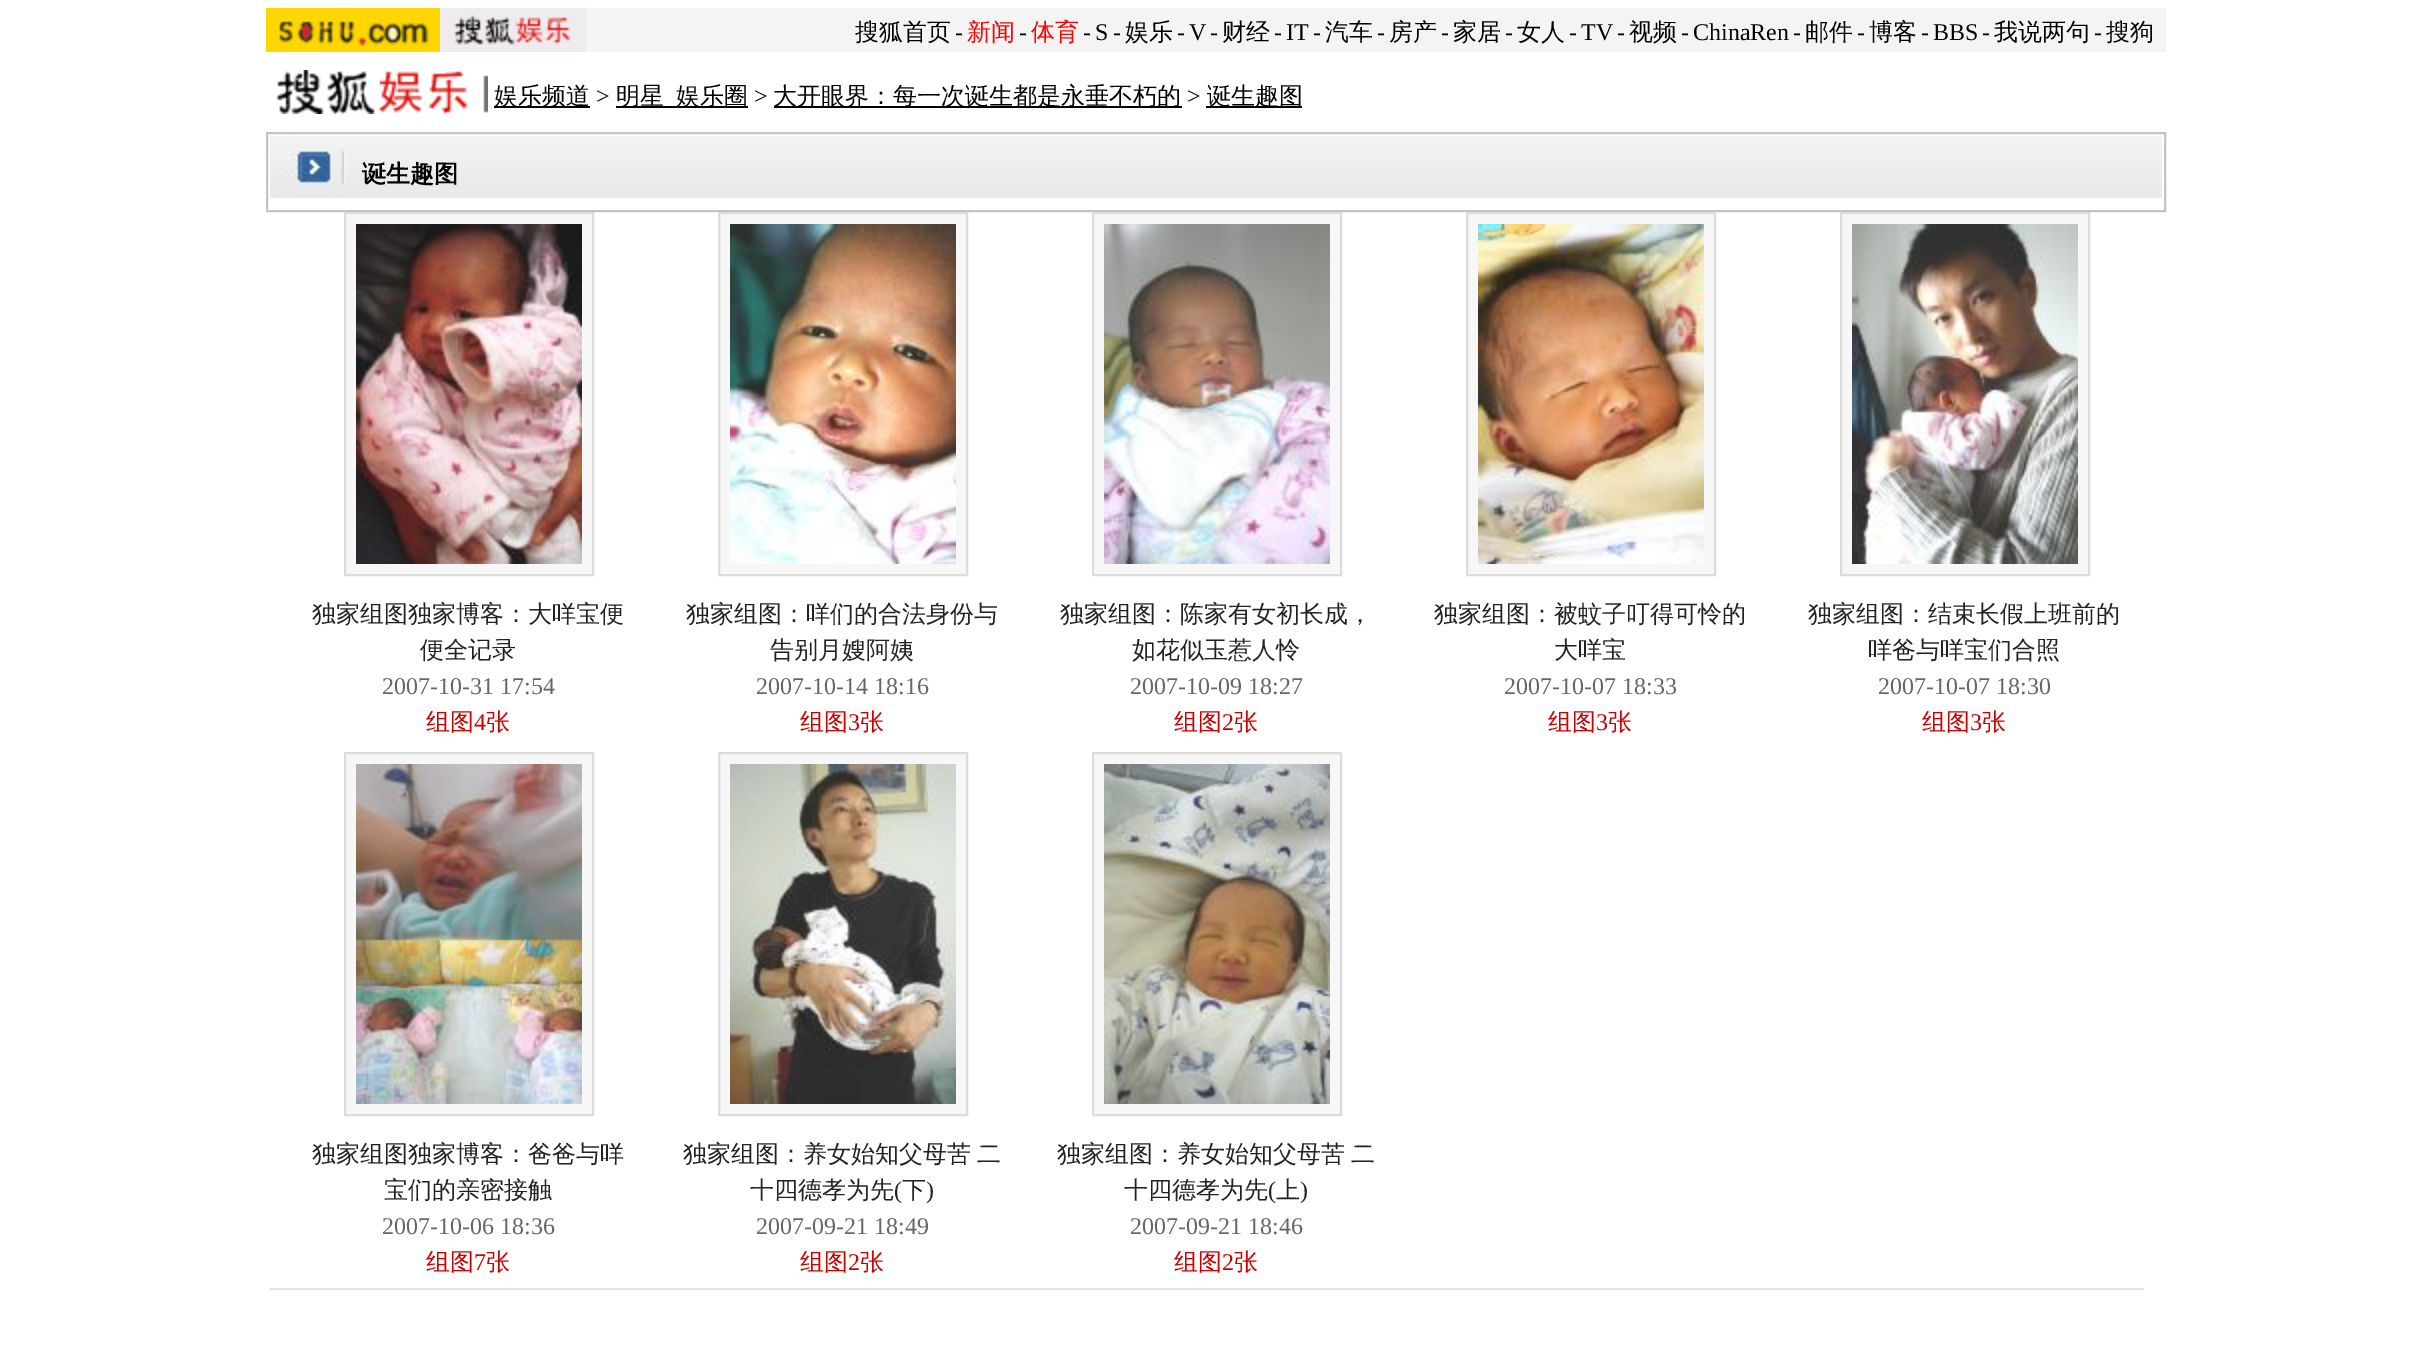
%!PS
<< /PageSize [2431 1346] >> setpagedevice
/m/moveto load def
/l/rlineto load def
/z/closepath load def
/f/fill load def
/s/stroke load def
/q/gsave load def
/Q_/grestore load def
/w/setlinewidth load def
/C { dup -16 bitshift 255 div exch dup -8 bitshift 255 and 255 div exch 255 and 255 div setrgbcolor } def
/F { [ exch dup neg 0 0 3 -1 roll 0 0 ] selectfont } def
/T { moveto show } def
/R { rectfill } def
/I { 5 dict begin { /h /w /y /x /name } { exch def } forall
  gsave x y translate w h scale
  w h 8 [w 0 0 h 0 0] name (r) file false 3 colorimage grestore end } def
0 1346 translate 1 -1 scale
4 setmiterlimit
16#FFFFFF C
0 0 2431 1346 R
16#F4F4F4 C
586 8 1580 44 R
(1.rgb) 266 8 174 44 I
(2.rgb) 440 8 146 44 I
/WenQuanYiZenHei-Medium 24 F
16#000000 C
(搜狐首页) 855 40 T
/LiberationSerif-Regular 24 F
(-) 955 40 T
/WenQuanYiZenHei-Medium 24 F
16#FF0000 C
(新闻) 967 40 T
/LiberationSerif-Regular 24 F
16#000000 C
(-) 1019 40 T
/WenQuanYiZenHei-Medium 24 F
16#FF0000 C
(体育) 1031 40 T
/LiberationSerif-Regular 24 F
16#000000 C
(-) 1083 40 T
(S) 1095 40 T
(-) 1113 40 T
/WenQuanYiZenHei-Medium 24 F
(娱乐) 1125 40 T
/LiberationSerif-Regular 24 F
(-) 1177 40 T
(V) 1189 40 T
(-) 1210 40 T
/WenQuanYiZenHei-Medium 24 F
(财经) 1222 40 T
/LiberationSerif-Regular 24 F
(-) 1274 40 T
(IT) 1286 40 T
(-) 1313 40 T
/WenQuanYiZenHei-Medium 24 F
(汽车) 1325 40 T
/LiberationSerif-Regular 24 F
(-) 1377 40 T
/WenQuanYiZenHei-Medium 24 F
(房产) 1389 40 T
/LiberationSerif-Regular 24 F
(-) 1441 40 T
/WenQuanYiZenHei-Medium 24 F
(家居) 1453 40 T
/LiberationSerif-Regular 24 F
(-) 1505 40 T
/WenQuanYiZenHei-Medium 24 F
(女人) 1517 40 T
/LiberationSerif-Regular 24 F
(-) 1569 40 T
(TV) 1581 40 T
(-) 1617 40 T
/WenQuanYiZenHei-Medium 24 F
(视频) 1629 40 T
/LiberationSerif-Regular 24 F
(-) 1681 40 T
(ChinaRen) 1693 40 T
(-) 1793 40 T
/WenQuanYiZenHei-Medium 24 F
(邮件) 1805 40 T
/LiberationSerif-Regular 24 F
(-) 1857 40 T
/WenQuanYiZenHei-Medium 24 F
(博客) 1869 40 T
/LiberationSerif-Regular 24 F
(-) 1921 40 T
(BBS) 1933 40 T
(-) 1982 40 T
/WenQuanYiZenHei-Medium 24 F
(我说两句) 1994 40 T
/LiberationSerif-Regular 24 F
(-) 2094 40 T
/WenQuanYiZenHei-Medium 24 F
(搜狗) 2106 40 T
(3.rgb) 275 70 213 44 I
494 106 96 2 R
(娱乐频道) 494 104 T
/LiberationSerif-Regular 24 F
(>) 596 104 T
616 106 132 2 R
/WenQuanYiZenHei-Medium 24 F
(明星) 616 104 T
(娱乐圈) 676 104 T
/LiberationSerif-Regular 24 F
(>) 754 104 T
774 106 408 2 R
/WenQuanYiZenHei-Medium 24 F
(大开眼界：每一次诞生都是永垂不朽的) 773 104 T
/LiberationSerif-Regular 24 F
(>) 1187 104 T
1206 106 96 2 R
/WenQuanYiZenHei-Medium 24 F
(诞生趣图) 1207 104 T
16#C3C3C3 C
2 w
267 133 1898 78 rectstroke
(4.rgb) 270 136 1892 62 I
/WenQuanYiZenHei-Bold 24 F
16#000000 C
(诞生趣图) 362 182 T
16#F7F7F8 C
345 213 m 248 0 l 0 362 l -248 0 l z q f Q_
16#DCDCDB C
s
(5.rgb) 356 224 226 340 I
/WenQuanYiZenHei-Medium 24 F
16#222222 C
(独家组图独家博客：大咩宝便) 312 622 T
(便全记录) 420 658 T
/LiberationSerif-Regular 24 F
16#666666 C
(2007-10-31 17:54) 382 694 T
/WenQuanYiZenHei-Medium 24 F
16#CC0000 C
(组图) 426 730 T
/LiberationSerif-Regular 24 F
(4) 474 730 T
/WenQuanYiZenHei-Medium 24 F
(张) 486 730 T
16#F7F7F8 C
719 213 m 248 0 l 0 362 l -248 0 l z q f Q_
16#DCDCDB C
s
(6.rgb) 730 224 226 340 I
16#222222 C
(独家组图：咩们的合法身份与) 686 622 T
(告别月嫂阿姨) 770 658 T
/LiberationSerif-Regular 24 F
16#666666 C
(2007-10-14 18:16) 756 694 T
/WenQuanYiZenHei-Medium 24 F
16#CC0000 C
(组图) 800 730 T
/LiberationSerif-Regular 24 F
(3) 848 730 T
/WenQuanYiZenHei-Medium 24 F
(张) 860 730 T
16#F7F7F8 C
1093 213 m 248 0 l 0 362 l -248 0 l z q f Q_
16#DCDCDB C
s
(7.rgb) 1104 224 226 340 I
16#222222 C
(独家组图：陈家有女初长成，) 1060 622 T
(如花似玉惹人怜) 1132 658 T
/LiberationSerif-Regular 24 F
16#666666 C
(2007-10-09 18:27) 1130 694 T
/WenQuanYiZenHei-Medium 24 F
16#CC0000 C
(组图) 1174 730 T
/LiberationSerif-Regular 24 F
(2) 1222 730 T
/WenQuanYiZenHei-Medium 24 F
(张) 1234 730 T
16#F7F7F8 C
1467 213 m 248 0 l 0 362 l -248 0 l z q f Q_
16#DCDCDB C
s
(8.rgb) 1478 224 226 340 I
16#222222 C
(独家组图：被蚊子叮得可怜的) 1434 622 T
(大咩宝) 1554 658 T
/LiberationSerif-Regular 24 F
16#666666 C
(2007-10-07 18:33) 1504 694 T
/WenQuanYiZenHei-Medium 24 F
16#CC0000 C
(组图) 1548 730 T
/LiberationSerif-Regular 24 F
(3) 1596 730 T
/WenQuanYiZenHei-Medium 24 F
(张) 1608 730 T
16#F7F7F8 C
1841 213 m 248 0 l 0 362 l -248 0 l z q f Q_
16#DCDCDB C
s
(9.rgb) 1852 224 226 340 I
16#222222 C
(独家组图：结束长假上班前的) 1808 622 T
(咩爸与咩宝们合照) 1868 658 T
/LiberationSerif-Regular 24 F
16#666666 C
(2007-10-07 18:30) 1878 694 T
/WenQuanYiZenHei-Medium 24 F
16#CC0000 C
(组图) 1922 730 T
/LiberationSerif-Regular 24 F
(3) 1970 730 T
/WenQuanYiZenHei-Medium 24 F
(张) 1982 730 T
16#F7F7F8 C
345 753 m 248 0 l 0 362 l -248 0 l z q f Q_
16#DCDCDB C
s
(10.rgb) 356 764 226 340 I
16#222222 C
(独家组图独家博客：爸爸与咩) 312 1162 T
(宝们的亲密接触) 384 1198 T
/LiberationSerif-Regular 24 F
16#666666 C
(2007-10-06 18:36) 382 1234 T
/WenQuanYiZenHei-Medium 24 F
16#CC0000 C
(组图) 426 1270 T
/LiberationSerif-Regular 24 F
(7) 474 1270 T
/WenQuanYiZenHei-Medium 24 F
(张) 486 1270 T
16#F7F7F8 C
719 753 m 248 0 l 0 362 l -248 0 l z q f Q_
16#DCDCDB C
s
(11.rgb) 730 764 226 340 I
16#222222 C
683 1162 m -1 0 32 (独家组图：养女始知父母苦 二) widthshow
(十四德孝为先) 750 1198 T
/LiberationSerif-Regular 24 F
(\() 894 1198 T
/WenQuanYiZenHei-Medium 24 F
(下) 902 1198 T
/LiberationSerif-Regular 24 F
(\)) 926 1198 T
16#666666 C
(2007-09-21 18:49) 756 1234 T
/WenQuanYiZenHei-Medium 24 F
16#CC0000 C
(组图) 800 1270 T
/LiberationSerif-Regular 24 F
(2) 848 1270 T
/WenQuanYiZenHei-Medium 24 F
(张) 860 1270 T
16#F7F7F8 C
1093 753 m 248 0 l 0 362 l -248 0 l z q f Q_
16#DCDCDB C
s
(12.rgb) 1104 764 226 340 I
16#222222 C
1057 1162 m -1 0 32 (独家组图：养女始知父母苦 二) widthshow
(十四德孝为先) 1124 1198 T
/LiberationSerif-Regular 24 F
(\() 1268 1198 T
/WenQuanYiZenHei-Medium 24 F
(上) 1276 1198 T
/LiberationSerif-Regular 24 F
(\)) 1300 1198 T
16#666666 C
(2007-09-21 18:46) 1130 1234 T
/WenQuanYiZenHei-Medium 24 F
16#CC0000 C
(组图) 1174 1270 T
/LiberationSerif-Regular 24 F
(2) 1222 1270 T
/WenQuanYiZenHei-Medium 24 F
(张) 1234 1270 T
16#DFE4E7 C
270 1288 1874 2 R
showpage
